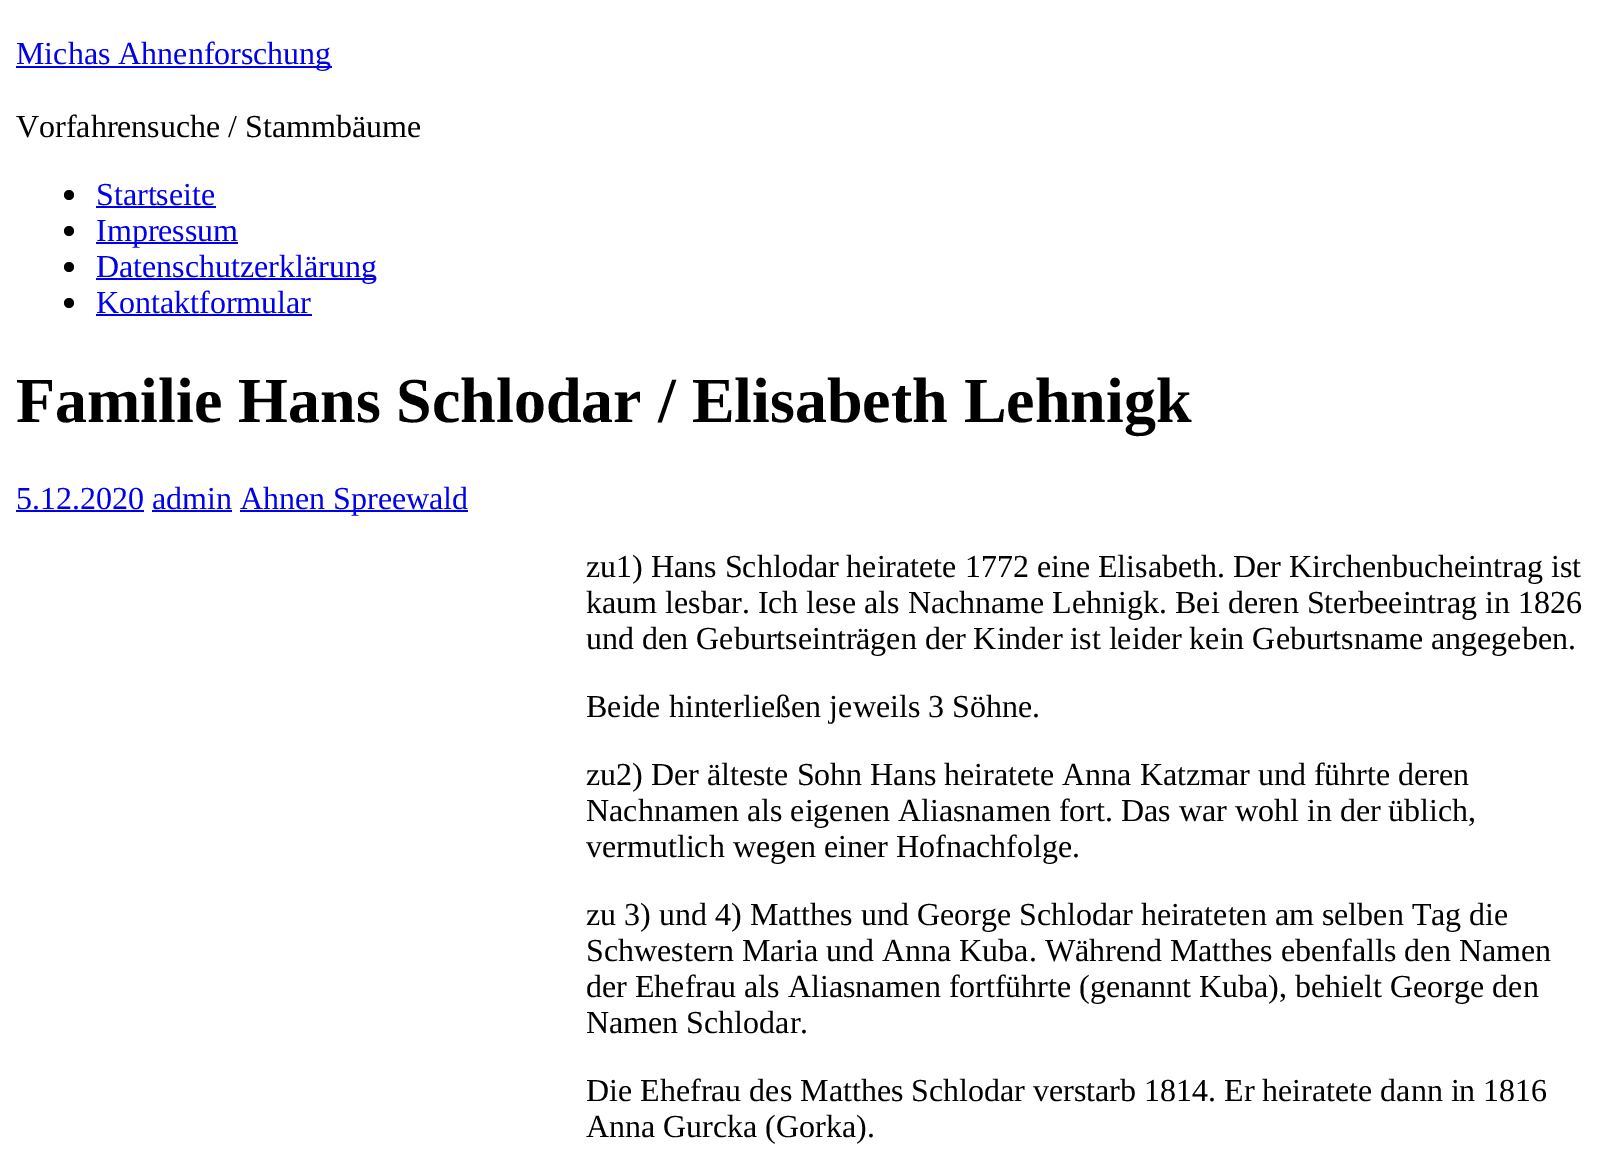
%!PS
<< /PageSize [1613 1153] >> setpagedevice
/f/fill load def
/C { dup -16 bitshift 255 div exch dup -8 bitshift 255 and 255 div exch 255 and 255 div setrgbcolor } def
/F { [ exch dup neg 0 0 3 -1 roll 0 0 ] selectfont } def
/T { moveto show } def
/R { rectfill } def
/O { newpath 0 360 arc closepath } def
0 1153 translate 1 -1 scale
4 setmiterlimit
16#FFFFFF C
0 0 1613 1153 R
16#0000EE C
16 66 316 2 R
/LiberationSerif-Regular 32 F
(Michas Ahnenforschung) 16 64 T
16#000000 C
(Vorfahrensuche / Stammbäume) 16 137 T
69 195 5 O f
16#0000EE C
(Startseite) 96 205 T
96 206 120 2 R
16#000000 C
69 231 5 O f
16#0000EE C
96 242 142 2 R
(Impressum) 96 241 T
16#000000 C
69 267 5 O f
16#0000EE C
96 278 280 2 R
(Datenschutzerklärung) 96 277 T
16#000000 C
69 303 5 O f
16#0000EE C
(Kontaktformular) 96 313 T
96 314 216 2 R
/LiberationSerif-Bold 64 F
16#000000 C
(Familie Hans Schlodar / Elisabeth Lehnigk) 16 422 T
/LiberationSerif-Regular 32 F
16#0000EE C
(5.12.2020 admin) 16 509 T
16 510 128 2 R
240 510 228 2 R
(Ahnen Spreewald) 240 509 T
152 510 80 2 R
16#000000 C
(zu1\) Hans Schlodar heiratete 1772 eine Elisabeth. Der Kirchenbucheintrag ist) 586 577 T
(kaum lesbar. Ich lese als Nachname Lehnigk. Bei deren Sterbeeintrag in 1826) 586 613 T
(und den Geburtseinträgen der Kinder ist leider kein Geburtsname angegeben.) 586 649 T
(Beide hinterließen jeweils 3 Söhne.) 586 717 T
(zu2\) Der älteste Sohn Hans heiratete Anna Katzmar und führte deren) 586 785 T
(Nachnamen als eigenen Aliasnamen fort. Das war wohl in der üblich,) 586 821 T
(vermutlich wegen einer Hofnachfolge.) 586 857 T
(zu 3\) und 4\) Matthes und George Schlodar heirateten am selben Tag die) 586 925 T
(Schwestern Maria und Anna Kuba. Während Matthes ebenfalls den Namen) 586 961 T
(der Ehefrau als Aliasnamen fortführte \(genannt Kuba\), behielt George den) 586 997 T
(Namen Schlodar.) 586 1033 T
(Die Ehefrau des Matthes Schlodar verstarb 1814. Er heiratete dann in 1816) 586 1101 T
(Anna Gurcka \(Gorka\).) 586 1137 T
showpage
